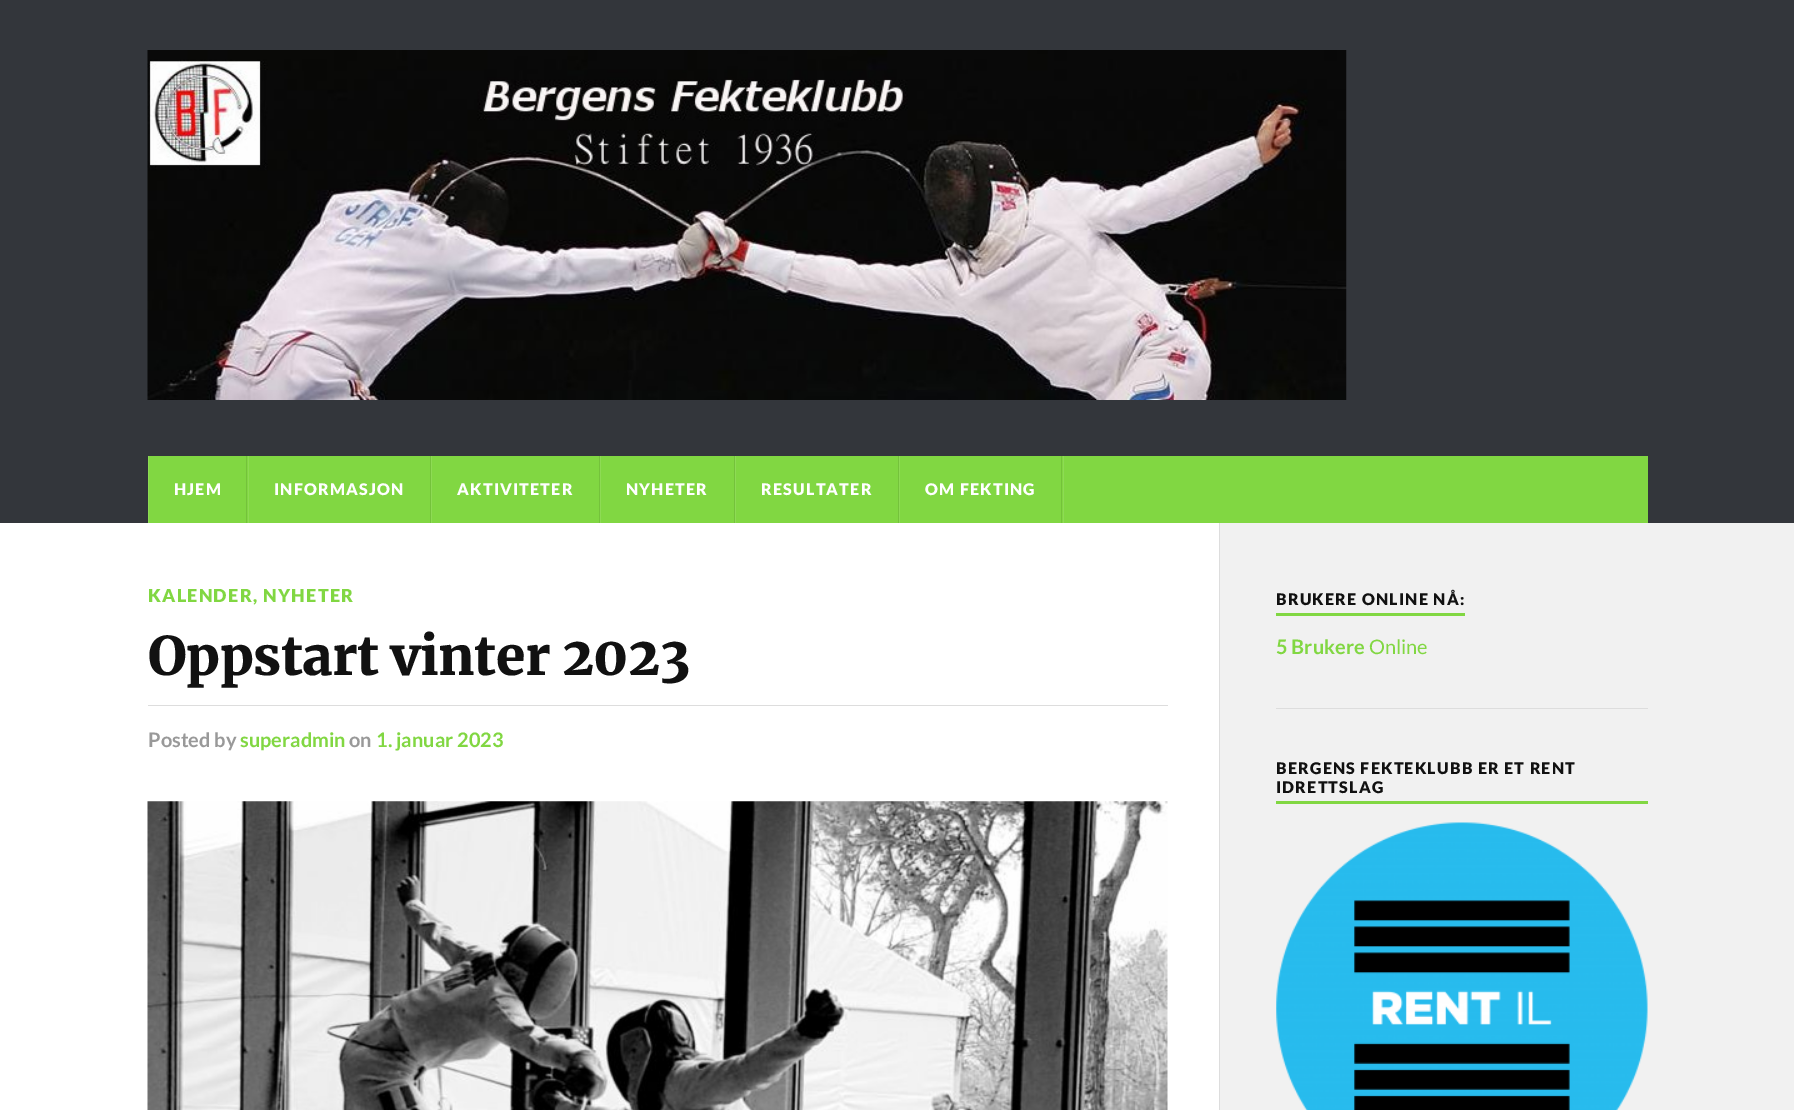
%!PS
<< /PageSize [1794 1110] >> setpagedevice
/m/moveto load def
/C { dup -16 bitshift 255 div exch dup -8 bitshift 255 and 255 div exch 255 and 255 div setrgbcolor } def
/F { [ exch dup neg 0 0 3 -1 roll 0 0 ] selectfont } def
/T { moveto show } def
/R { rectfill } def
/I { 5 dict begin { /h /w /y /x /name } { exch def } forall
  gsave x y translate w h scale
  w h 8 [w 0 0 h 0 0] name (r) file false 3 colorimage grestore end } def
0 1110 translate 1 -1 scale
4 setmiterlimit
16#F1F1F1 C
0 0 1794 1110 R
16#33363B C
0 0 1794 523 R
(1.rgb) 147 50 1200 350 I
16#81D742 C
149 456 1499 67 R
16#74C23B C
246 456 1 67 R
16#8EDB55 C
148 456 1 67 R
/Lato-Black 16 F
16#FFFFFF C
174 495 m 1.25 0 (HJEM) ashow
16#74C23B C
430 456 1 67 R
16#8EDB55 C
248 456 1 67 R
16#FFFFFF C
274 495 m 1.25 0 (INFORMASJON) ashow
16#74C23B C
599 456 1 67 R
16#8EDB55 C
431 456 1 67 R
16#FFFFFF C
457 495 m 1.25 0 (AKTIVITETER) ashow
16#74C23B C
734 456 1 67 R
16#8EDB55 C
600 456 1 67 R
16#FFFFFF C
626 495 m 1.25 0 (NYHETER) ashow
16#74C23B C
898 456 1 67 R
16#8EDB55 C
735 456 1 67 R
16#FFFFFF C
761 495 m 1.25 0 (RESULTATER) ashow
16#74C23B C
1061 456 1 67 R
16#8EDB55 C
899 456 1 67 R
16#FFFFFF C
925 495 m 1.25 0 (OM FEKTING) ashow
16#8EDB55 C
1063 456 1 67 R
16#FFFFFF C
0 523 1219 587 R
/Lato-Black 18 F
16#81D742 C
148 602 m 1.25 0 (KALENDER, NYHETER) ashow
/Merriweather-Black 53.1 F
16#111111 C
148 675 m -.5 0 (Oppstart vinter 2023) ashow
16#DDDDDD C
148 705 1020 1 R
/Lato-Bold 20 F
16#999999 C
(Posted by) 148 747 T
16#81D742 C
(superadmin) 240 747 T
16#999999 C
(on) 349 747 T
16#81D742 C
(1. januar 2023) 376 747 T
(2.rgb) 147 801 1021 309 I
16#DDDDDD C
1219 523 1 587 R
16#81D742 C
1276 613 189 3 R
/Lato-Black 16 F
16#111111 C
1276 605 m 1.25 0 (BRUKERE ONLINE NÅ:) ashow
/Lato-Bold 20 F
16#81D742 C
(5 Brukere) 1276 654 T
/Lato-Regular 20 F
(Online) 1369 654 T
16#DDDDDD C
1276 708 372 1 R
16#81D742 C
1276 801 372 3 R
/Lato-Black 16 F
16#111111 C
1276 774 m 1.25 0 (BERGENS FEKTEKLUBB ER ET RENT) ashow
1276 793 m 1.25 0 (IDRETTSLAG) ashow
(3.rgb) 1276 822 372 288 I
showpage
